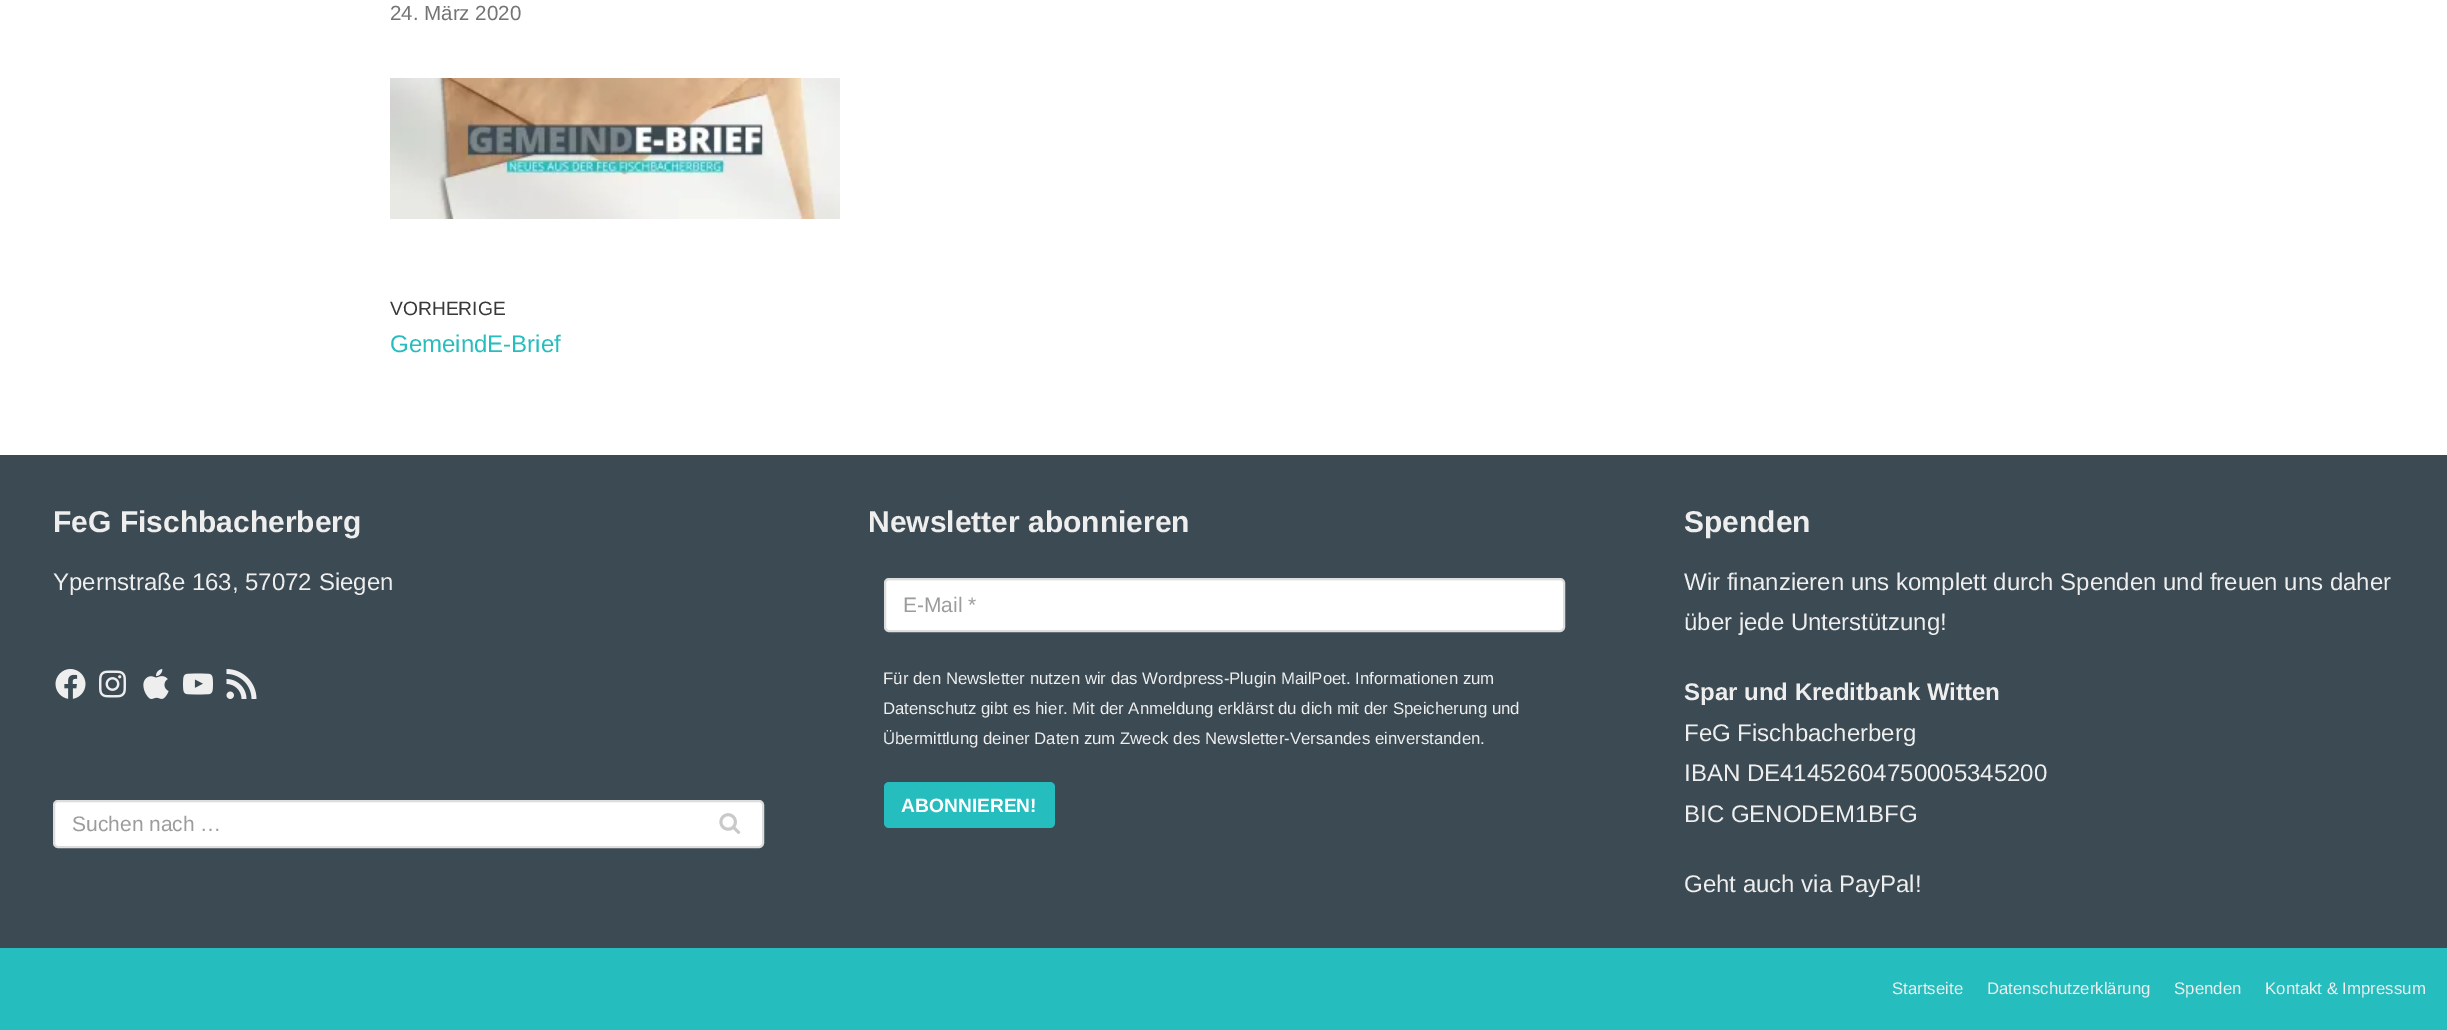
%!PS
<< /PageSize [2447 1030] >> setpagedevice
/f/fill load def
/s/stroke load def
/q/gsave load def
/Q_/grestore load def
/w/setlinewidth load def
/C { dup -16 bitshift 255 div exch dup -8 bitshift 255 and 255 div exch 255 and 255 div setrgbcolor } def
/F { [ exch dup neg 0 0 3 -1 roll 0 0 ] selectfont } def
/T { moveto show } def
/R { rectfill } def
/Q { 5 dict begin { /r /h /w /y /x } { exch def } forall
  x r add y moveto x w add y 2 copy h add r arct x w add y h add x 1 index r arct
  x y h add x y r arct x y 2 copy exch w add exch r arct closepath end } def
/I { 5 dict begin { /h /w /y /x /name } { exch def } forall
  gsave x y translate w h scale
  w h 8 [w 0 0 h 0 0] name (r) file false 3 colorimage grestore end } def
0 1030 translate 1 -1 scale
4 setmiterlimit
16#FFFFFF C
0 0 2447 1030 R
/LiberationSans-Regular 20.5 F
16#747474 C
(24. März 2020) 390 20 T
(1.rgb) 390 78 450 141 I
/LiberationSans-Regular 19.25 F
16#393939 C
(VORHERIGE) 390 315 T
/LiberationSans-Regular 24 F
16#26BDBE C
(GemeindE-Brief) 390 352 T
16#3C4B53 C
0 455 2447 493 R
/LiberationSans-Bold 30 F
16#EEEEEE C
(FeG Fischbacherberg) 53 532 T
/LiberationSans-Regular 24 F
(Ypernstraße 163, 57072 Siegen) 53 590 T
(2.rgb) 55 669 31 30 I
(3.rgb) 99 670 27 28 I
(4.rgb) 143 669 26 30 I
(5.rgb) 183 673 30 22 I
(6.rgb) 226 669 31 30 I
16#FFFFFF C
54 801 709 46 4 Q q f Q_
16#DDDDDD C
2 w
s
/LiberationSans-Regular 21 F
16#9C9C9C C
(Suchen nach …) 72 831 T
(7.rgb) 719 813 22 21 I
/LiberationSans-Bold 30 F
16#EEEEEE C
(Newsletter abonnieren) 868 532 T
16#FFFFFF C
885 579 679 52 4 Q q f Q_
16#DDDDDD C
s
/LiberationSans-Regular 21 F
16#9C9C9C C
(E-Mail *) 903 612 T
/LiberationSans-Regular 16.8 F
16#EEEEEE C
(Für den Newsletter nutzen wir das Wordpress-Plugin MailPoet. Informationen zum) 883 684 T
(Datenschutz gibt es hier. Mit der Anmeldung erklärst du dich mit der Speicherung und) 883 714 T
(Übermittlung deiner Daten zum Zweck des Newsletter-Versandes einverstanden.) 883 744 T
16#26BDBE C
884 782 171 46 5 Q f
/LiberationSans-Bold 19.25 F
16#FFFFFF C
(ABONNIEREN!) 901 812 T
/LiberationSans-Bold 30 F
16#EEEEEE C
(Spenden) 1684 532 T
/LiberationSans-Regular 24 F
(Wir finanzieren uns komplett durch Spenden und freuen uns daher) 1684 590 T
(über jede Unterstützung!) 1684 630 T
/LiberationSans-Bold 24 F
(Spar und Kreditbank Witten) 1684 700 T
/LiberationSans-Regular 24 F
(FeG Fischbacherberg) 1684 741 T
(IBAN DE41452604750005345200) 1684 781 T
(BIC GENODEM1BFG) 1684 822 T
(Geht auch via PayPal!) 1684 892 T
16#26BDBE C
0 948 2447 82 R
/LiberationSans-Regular 16.8 F
16#EEEEEE C
(Startseite) 1892 994 T
(Datenschutzerklärung) 1987 994 T
(Spenden) 2174 994 T
(Kontakt & Impressum) 2265 994 T
showpage
